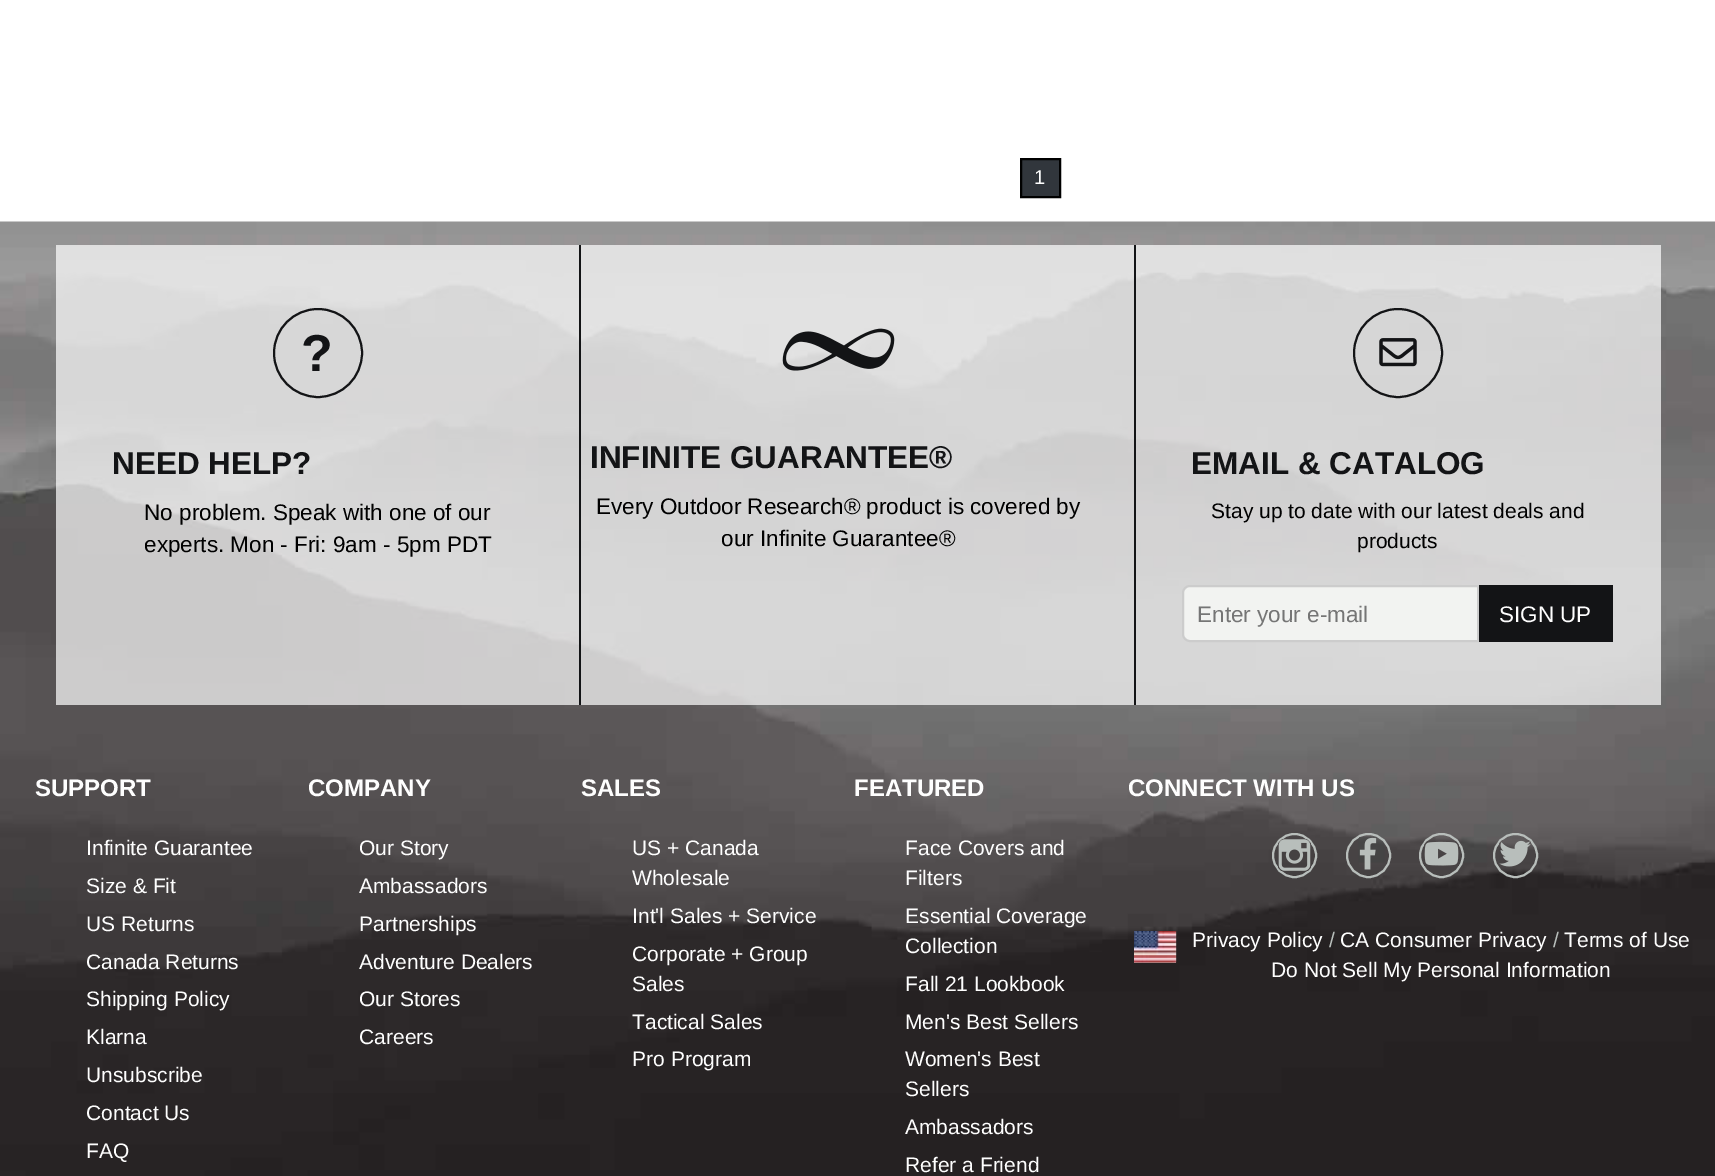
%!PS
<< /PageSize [1715 1176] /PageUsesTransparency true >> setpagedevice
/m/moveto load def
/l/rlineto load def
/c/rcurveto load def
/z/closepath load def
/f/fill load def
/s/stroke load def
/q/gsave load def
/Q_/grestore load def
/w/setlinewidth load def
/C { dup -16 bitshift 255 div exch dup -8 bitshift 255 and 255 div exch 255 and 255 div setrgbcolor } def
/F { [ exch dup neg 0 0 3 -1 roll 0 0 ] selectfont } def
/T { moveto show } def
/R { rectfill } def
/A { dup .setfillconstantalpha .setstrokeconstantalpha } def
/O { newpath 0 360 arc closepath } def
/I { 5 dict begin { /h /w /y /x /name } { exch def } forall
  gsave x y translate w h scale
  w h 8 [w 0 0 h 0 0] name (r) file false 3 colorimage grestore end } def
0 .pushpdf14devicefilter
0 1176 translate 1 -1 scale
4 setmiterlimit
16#FFFFFF C
0 0 1715 1176 R
16#31363C C
1021 159 m 39 0 l 0 38 l -39 0 l z q f Q_
16#000000 C
2 w
s
/LiberationSans-Regular 20 F
16#FEFEFE C
(1) 1034 184 T
(1.rgb) 0 221 1715 955 I
0.7 A
16#FFFFFF C
56 245 523 460 R
1 A
16#131416 C
579 245 2 460 R
318 353 44 O s
/LiberationSans-Bold 52 F
(?) 301 371 T
/LiberationSans-Bold 31.5 F
(NEED HELP?) 112 474 T
/LiberationSans-Regular 22.5 F
16#000000 C
(No problem. Speak with one of our) 144 520 T
(experts. Mon - Fri: 9am - 5pm PDT) 144 552 T
0.7 A
16#FFFFFF C
581 245 553 460 R
1 A
16#131416 C
1134 245 2 460 R
(2.rgb) 782 328 113 43 I
/LiberationSans-Bold 31.5 F
(INFINITE GUARANTEE®) 590 468 T
/LiberationSans-Regular 22.5 F
16#000000 C
(Every Outdoor Research® product is covered by) 596 514 T
(our Infinite Guarantee®) 721 546 T
0.7 A
16#FFFFFF C
1136 245 525 460 R
1 A
16#131416 C
1398 353 44 O s
(3.rgb) 1379 338 38 29 I
/LiberationSans-Bold 31.5 F
(EMAIL & CATALOG) 1191 474 T
/LiberationSans-Regular 21 F
16#000000 C
(Stay up to date with our latest deals and) 1211 518 T
(products) 1357 548 T
16#F2F3F1 C
1190 586 m 288 0 l 0 55 l -288 0 l -4 0 -7 -3 -7 -7 c 0 -41 l 0 -4 3 -7 7 -7 c z q f Q_
16#CCCCCC C
s
/LiberationSans-Regular 22.5 F
16#757575 C
(Enter your e-mail) 1197 622 T
16#131416 C
1479 585 134 57 R
16#FEFEFE C
(SIGN UP) 1499 622 T
/LiberationSans-Bold 24 F
(SUPPORT) 35 796 T
/LiberationSans-Regular 21 F
(Infinite Guarantee) 86 855 T
(Size & Fit) 86 893 T
(US Returns) 86 931 T
(Canada Returns) 86 969 T
(Shipping Policy) 86 1006 T
(Klarna) 86 1044 T
(Unsubscribe) 86 1082 T
(Contact Us) 86 1120 T
(FAQ) 86 1158 T
/LiberationSans-Bold 24 F
(COMPANY) 308 796 T
/LiberationSans-Regular 21 F
(Our Story) 359 855 T
(Ambassadors) 359 893 T
(Partnerships) 359 931 T
(Adventure Dealers) 359 969 T
(Our Stores) 359 1006 T
(Careers) 359 1044 T
/LiberationSans-Bold 24 F
(SALES) 581 796 T
/LiberationSans-Regular 21 F
(US + Canada) 632 855 T
(Wholesale) 632 885 T
(Int'l Sales + Service) 632 923 T
(Corporate + Group) 632 961 T
(Sales) 632 991 T
(Tactical Sales) 632 1029 T
(Pro Program) 632 1066 T
/LiberationSans-Bold 24 F
(FEATURED) 854 796 T
/LiberationSans-Regular 21 F
(Face Covers and) 905 855 T
(Filters) 905 885 T
(Essential Coverage) 905 923 T
(Collection) 905 953 T
(Fall 21 Lookbook) 905 991 T
(Men's Best Sellers) 905 1029 T
(Women's Best) 905 1066 T
(Sellers) 905 1096 T
(Ambassadors) 905 1134 T
(Refer a Friend) 905 1172 T
/LiberationSans-Bold 24 F
(CONNECT WITH US) 1128 796 T
16#B8BEBB C
1294.5 855.5 21.5 O s
(4.rgb) 1278 839 33 32 I
1368.5 855.5 21.5 O s
(5.rgb) 1359 837 18 33 I
1441.5 855.5 21.5 O s
(6.rgb) 1424 841 35 25 I
1515.5 855.5 21.5 O s
(7.rgb) 1499 840 32 27 I
1134 932 42 31 R
(8.rgb) 1134 931 43 32 I
/LiberationSans-Regular 21 F
16#FEFEFE C
(Privacy Policy) 1192 947 T
16#B8BEBB C
(/) 1329 947 T
16#FEFEFE C
(CA Consumer Privacy) 1340 947 T
16#B8BEBB C
(/) 1553 947 T
16#FEFEFE C
(Terms of Use) 1564 947 T
(Do Not Sell My Personal Information) 1271 977 T
.poppdf14devicefilter showpage
